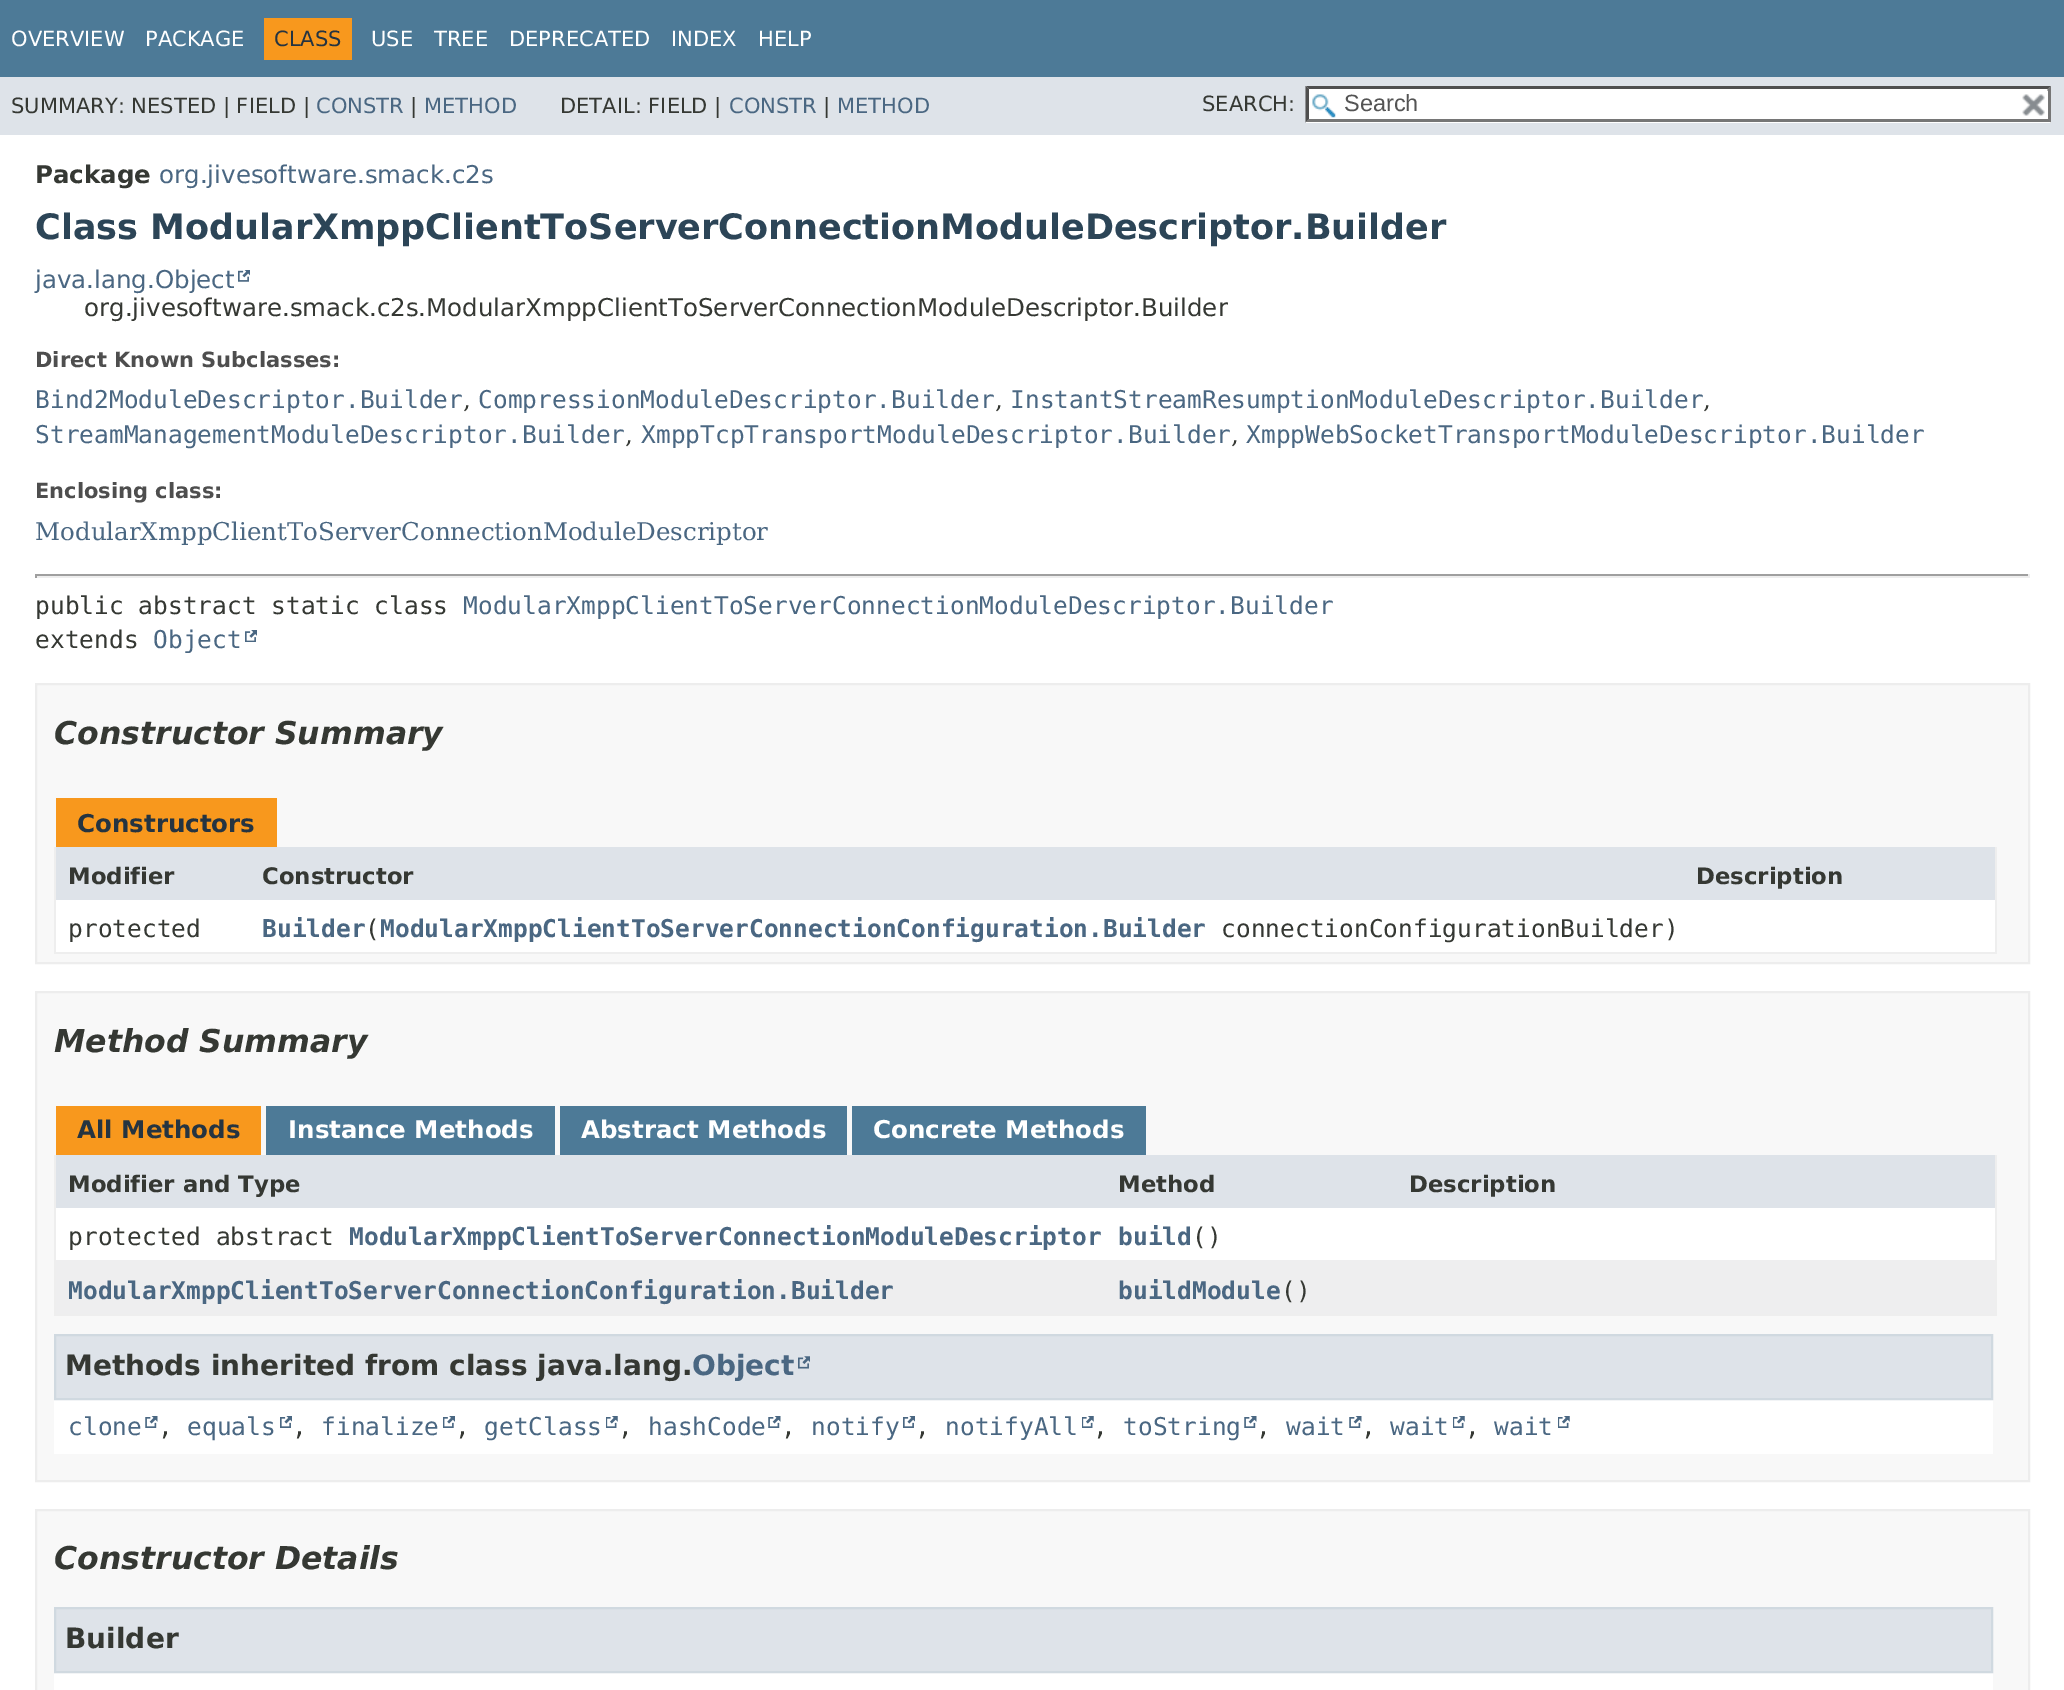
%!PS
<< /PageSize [2064 1690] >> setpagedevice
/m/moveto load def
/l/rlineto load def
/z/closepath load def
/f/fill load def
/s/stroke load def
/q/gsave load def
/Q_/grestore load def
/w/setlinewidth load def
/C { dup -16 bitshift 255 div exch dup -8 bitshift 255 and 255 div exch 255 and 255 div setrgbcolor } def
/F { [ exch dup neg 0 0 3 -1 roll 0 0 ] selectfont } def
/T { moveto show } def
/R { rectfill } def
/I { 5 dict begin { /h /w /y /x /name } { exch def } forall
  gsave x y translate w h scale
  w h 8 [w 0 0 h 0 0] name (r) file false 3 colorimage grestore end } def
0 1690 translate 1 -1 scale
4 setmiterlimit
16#FFFFFF C
0 0 2064 1690 R
16#4D7A97 C
0 0 2064 77 R
/DejaVuSans-Regular 21 F
16#FFFFFF C
(OVERVIEW) 11 46 T
(PACKAGE) 145 46 T
16#F8981D C
264 18 88 42 R
16#253441 C
(CLASS) 274 46 T
16#FFFFFF C
(USE) 371 46 T
(TREE) 434 46 T
(DEPRECATED) 509 46 T
(INDEX) 671 46 T
(HELP) 758 46 T
16#DEE3E9 C
0 77 2064 58 R
16#353833 C
(SUMMARY: NESTED | FIELD |) 11 113 T
16#4A6782 C
(CONSTR) 316 113 T
16#353833 C
(|) 410 113 T
16#4A6782 C
(METHOD) 424 113 T
16#353833 C
(DETAIL: FIELD |) 560 113 T
16#4A6782 C
(CONSTR) 729 113 T
16#353833 C
(|) 823 113 T
16#4A6782 C
(METHOD) 837 113 T
16#353833 C
(SEARCH:) 1202 111 T
16#FFFFFF C
1306 86 745 37 R
(1.rgb) 1312 94 24 24 I
16#4F4F4F C
1306 86 m 745 0 l -3 3 l -739 0 l z f
16#767676 C
2051 86 m 0 36.5 l -3.5 -3.5 l 0 -30 l z f
2051 122 m -745 0 l 3 -3 l 739 0 l z f
16#4F4F4F C
1305.5 122.5 m 0 -36.5 l 3.5 3 l 0 30 l z f
/LiberationSans-Regular 23.5 F
16#545454 C
(Search) 1344 111 T
16#FFFFFF C
2047 91 1 28 R
(2.rgb) 2022 94 23 22 I
/DejaVuSans-Bold 24.5 F
16#353833 C
(Package) 35 183 T
/DejaVuSans-Regular 24.5 F
16#4A6782 C
(org.jivesoftware.smack.c2s) 159 183 T
/DejaVuSans-Bold 35 F
16#2C4557 C
(Class ModularXmppClientToServerConnectionModuleDescriptor.Builder) 35 239 T
/DejaVuSans-Regular 24.5 F
16#4A6782 C
(java.lang.Object) 35 288 T
(3.rgb) 238 270 12 12 I
16#353833 C
(org.jivesoftware.smack.c2s.ModularXmppClientToServerConnectionModuleDescriptor.Builder) 84 316 T
/DejaVuSans-Bold 21 F
16#4E4E4E C
(Direct Known Subclasses:) 35 367 T
/DejaVuSansMono-Regular 24.5 F
16#4A6782 C
(Bind2ModuleDescriptor.Builder) 35 408 T
/DejaVuSerif-Regular 24.5 F
16#353833 C
(,) 463 408 T
/DejaVuSansMono-Regular 24.5 F
16#4A6782 C
(CompressionModuleDescriptor.Builder) 478 408 T
/DejaVuSerif-Regular 24.5 F
16#353833 C
(,) 995 408 T
/DejaVuSansMono-Regular 24.5 F
16#4A6782 C
(InstantStreamResumptionModuleDescriptor.Builder) 1010 408 T
/DejaVuSerif-Regular 24.5 F
16#353833 C
(,) 1703 408 T
/DejaVuSansMono-Regular 24.5 F
16#4A6782 C
(StreamManagementModuleDescriptor.Builder) 35 443 T
/DejaVuSerif-Regular 24.5 F
16#353833 C
(,) 625 443 T
/DejaVuSansMono-Regular 24.5 F
16#4A6782 C
(XmppTcpTransportModuleDescriptor.Builder) 641 443 T
/DejaVuSerif-Regular 24.5 F
16#353833 C
(,) 1231 443 T
/DejaVuSansMono-Regular 24.5 F
16#4A6782 C
(XmppWebSocketTransportModuleDescriptor.Builder) 1246 443 T
/DejaVuSans-Bold 21 F
16#4E4E4E C
(Enclosing class:) 35 498 T
/DejaVuSerif-Regular 24.5 F
16#4A6782 C
(ModularXmppClientToServerConnectionModuleDescriptor) 35 540 T
16#9F9F9F C
35 574 1995 2 R
16#EEEEEE C
2028 574 2 4 R
35 576 1995 2 R
16#9F9F9F C
35 574 2 4 R
/DejaVuSansMono-Regular 24.5 F
16#353833 C
(public abstract static class) 35 614 T
16#4A6782 C
(ModularXmppClientToServerConnectionModuleDescriptor.Builder) 463 614 T
16#353833 C
(extends) 35 648 T
16#4A6782 C
(Object) 153 648 T
(4.rgb) 245 630 12 12 I
16#F8F8F8 C
36 684 m 1993 0 l 0 279 l -1993 0 l z q f Q_
16#EDEDED C
2 w
s
/DejaVuSans-BoldItalic 31.5 F
16#353833 C
(Constructor Summary) 54 744 T
16#F8981D C
56 798 221 49 R
/DejaVuSans-Bold 24.5 F
16#253441 C
(Constructors) 77 832 T
16#EEEEEE C
1995 847 2 107 R
54 952 1943 2 R
54 847 2 107 R
16#DEE3E9 C
56 847 1628 53 R
/DejaVuSans-Bold 22.75 F
16#353833 C
(Modifier) 68 884 T
(Constructor) 262 884 T
16#DEE3E9 C
1684 847 311 53 R
16#353833 C
(Description) 1696 884 T
16#FFFFFF C
56 900 1628 52 R
/DejaVuSansMono-Regular 24.5 F
16#353833 C
(protected) 68 937 T
/DejaVuSansMono-Bold 24.5 F
16#4A6782 C
(Builder ModularXmppClientToServerConnectionConfiguration.Builder) 262 937 T
/DejaVuSansMono-Regular 24.5 F
16#353833 C
(\() 365 937 T
(connectionConfigurationBuilder\)) 1221 937 T
16#FFFFFF C
1684 900 311 52 R
16#F8F8F8 C
36 992 m 1993 0 l 0 489 l -1993 0 l z q f Q_
16#EDEDED C
s
/DejaVuSans-BoldItalic 31.5 F
16#353833 C
(Method Summary) 54 1052 T
16#F8981D C
56 1106 205 49 R
/DejaVuSans-Bold 24.5 F
16#253441 C
(All Methods) 77 1138 T
16#4D7A97 C
266 1106 289 49 R
16#FFFFFF C
(Instance Methods) 288 1138 T
16#4D7A97 C
560 1106 287 49 R
16#FFFFFF C
(Abstract Methods) 581 1138 T
16#4D7A97 C
852 1106 294 49 R
16#FFFFFF C
(Concrete Methods) 873 1138 T
16#EEEEEE C
1995 1155 2 161 R
54 1314 1943 2 R
54 1155 2 161 R
16#DEE3E9 C
56 1155 1341 53 R
/DejaVuSans-Bold 22.75 F
16#353833 C
(Modifier and Type) 68 1192 T
(Method) 1118 1192 T
16#DEE3E9 C
1397 1155 598 53 R
16#353833 C
(Description) 1409 1192 T
16#FFFFFF C
56 1208 1341 52 R
/DejaVuSansMono-Regular 24.5 F
16#353833 C
(protected abstract) 68 1245 T
/DejaVuSansMono-Bold 24.5 F
16#4A6782 C
(ModularXmppClientToServerConnectionModuleDescriptor) 349 1245 T
(build) 1118 1245 T
/DejaVuSansMono-Regular 24.5 F
16#353833 C
(\(\)) 1192 1245 T
16#FFFFFF C
1397 1208 598 52 R
16#EEEEEF C
56 1260 1341 54 R
/DejaVuSansMono-Bold 24.5 F
16#4A6782 C
(ModularXmppClientToServerConnectionConfiguration.Builder) 68 1299 T
(buildModule) 1118 1299 T
/DejaVuSansMono-Regular 24.5 F
16#353833 C
(\(\)) 1281 1299 T
16#EEEEEF C
1397 1260 598 54 R
16#FFFFFF C
54 1400 1939 54 R
16#DEE3E9 C
55 1335 m 1937 0 l 0 64 l -1937 0 l z q f Q_
16#D0D9E0 C
s
/DejaVuSans-Bold 28 F
16#353833 C
(Methods inherited from class java.lang.) 65 1375 T
16#4A6782 C
(Object) 692 1375 T
(5.rgb) 798 1356 12 13 I
/DejaVuSansMono-Regular 24.5 F
(clone) 68 1435 T
(6.rgb) 145 1416 13 12 I
16#353833 C
(,) 158 1435 T
16#4A6782 C
(equals) 187 1435 T
(7.rgb) 280 1416 12 12 I
16#353833 C
(,) 292 1435 T
16#4A6782 C
(finalize) 321 1435 T
(8.rgb) 443 1416 12 12 I
16#353833 C
(,) 455 1435 T
16#4A6782 C
(getClass) 484 1435 T
(9.rgb) 606 1416 12 12 I
16#353833 C
(,) 618 1435 T
16#4A6782 C
(hashCode) 648 1435 T
(6.rgb) 768 1416 13 12 I
16#353833 C
(,) 781 1435 T
16#4A6782 C
(notify) 811 1435 T
(7.rgb) 903 1416 12 12 I
16#353833 C
(,) 915 1435 T
16#4A6782 C
(notifyAll) 945 1435 T
(9.rgb) 1082 1416 12 12 I
16#353833 C
(,) 1093 1435 T
16#4A6782 C
(toString) 1123 1435 T
(6.rgb) 1244 1416 13 12 I
16#353833 C
(,) 1256 1435 T
16#4A6782 C
(wait) 1286 1435 T
(6.rgb) 1349 1416 13 12 I
16#353833 C
(,) 1361 1435 T
16#4A6782 C
(wait) 1390 1435 T
(9.rgb) 1453 1416 12 12 I
16#353833 C
(,) 1465 1435 T
16#4A6782 C
(wait) 1494 1435 T
(9.rgb) 1558 1416 12 12 I
16#F8F8F8 C
36 1510 m 1993 0 l 0 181 l -1993 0 l z q f Q_
16#EDEDED C
s
/DejaVuSans-BoldItalic 31.5 F
16#353833 C
(Constructor Details) 54 1569 T
16#FFFFFF C
54 1673 1939 17 R
16#DEE3E9 C
55 1608 m 1937 0 l 0 64 l -1937 0 l z q f Q_
16#D0D9E0 C
s
/DejaVuSans-Bold 28 F
16#353833 C
(Builder) 65 1648 T
showpage
